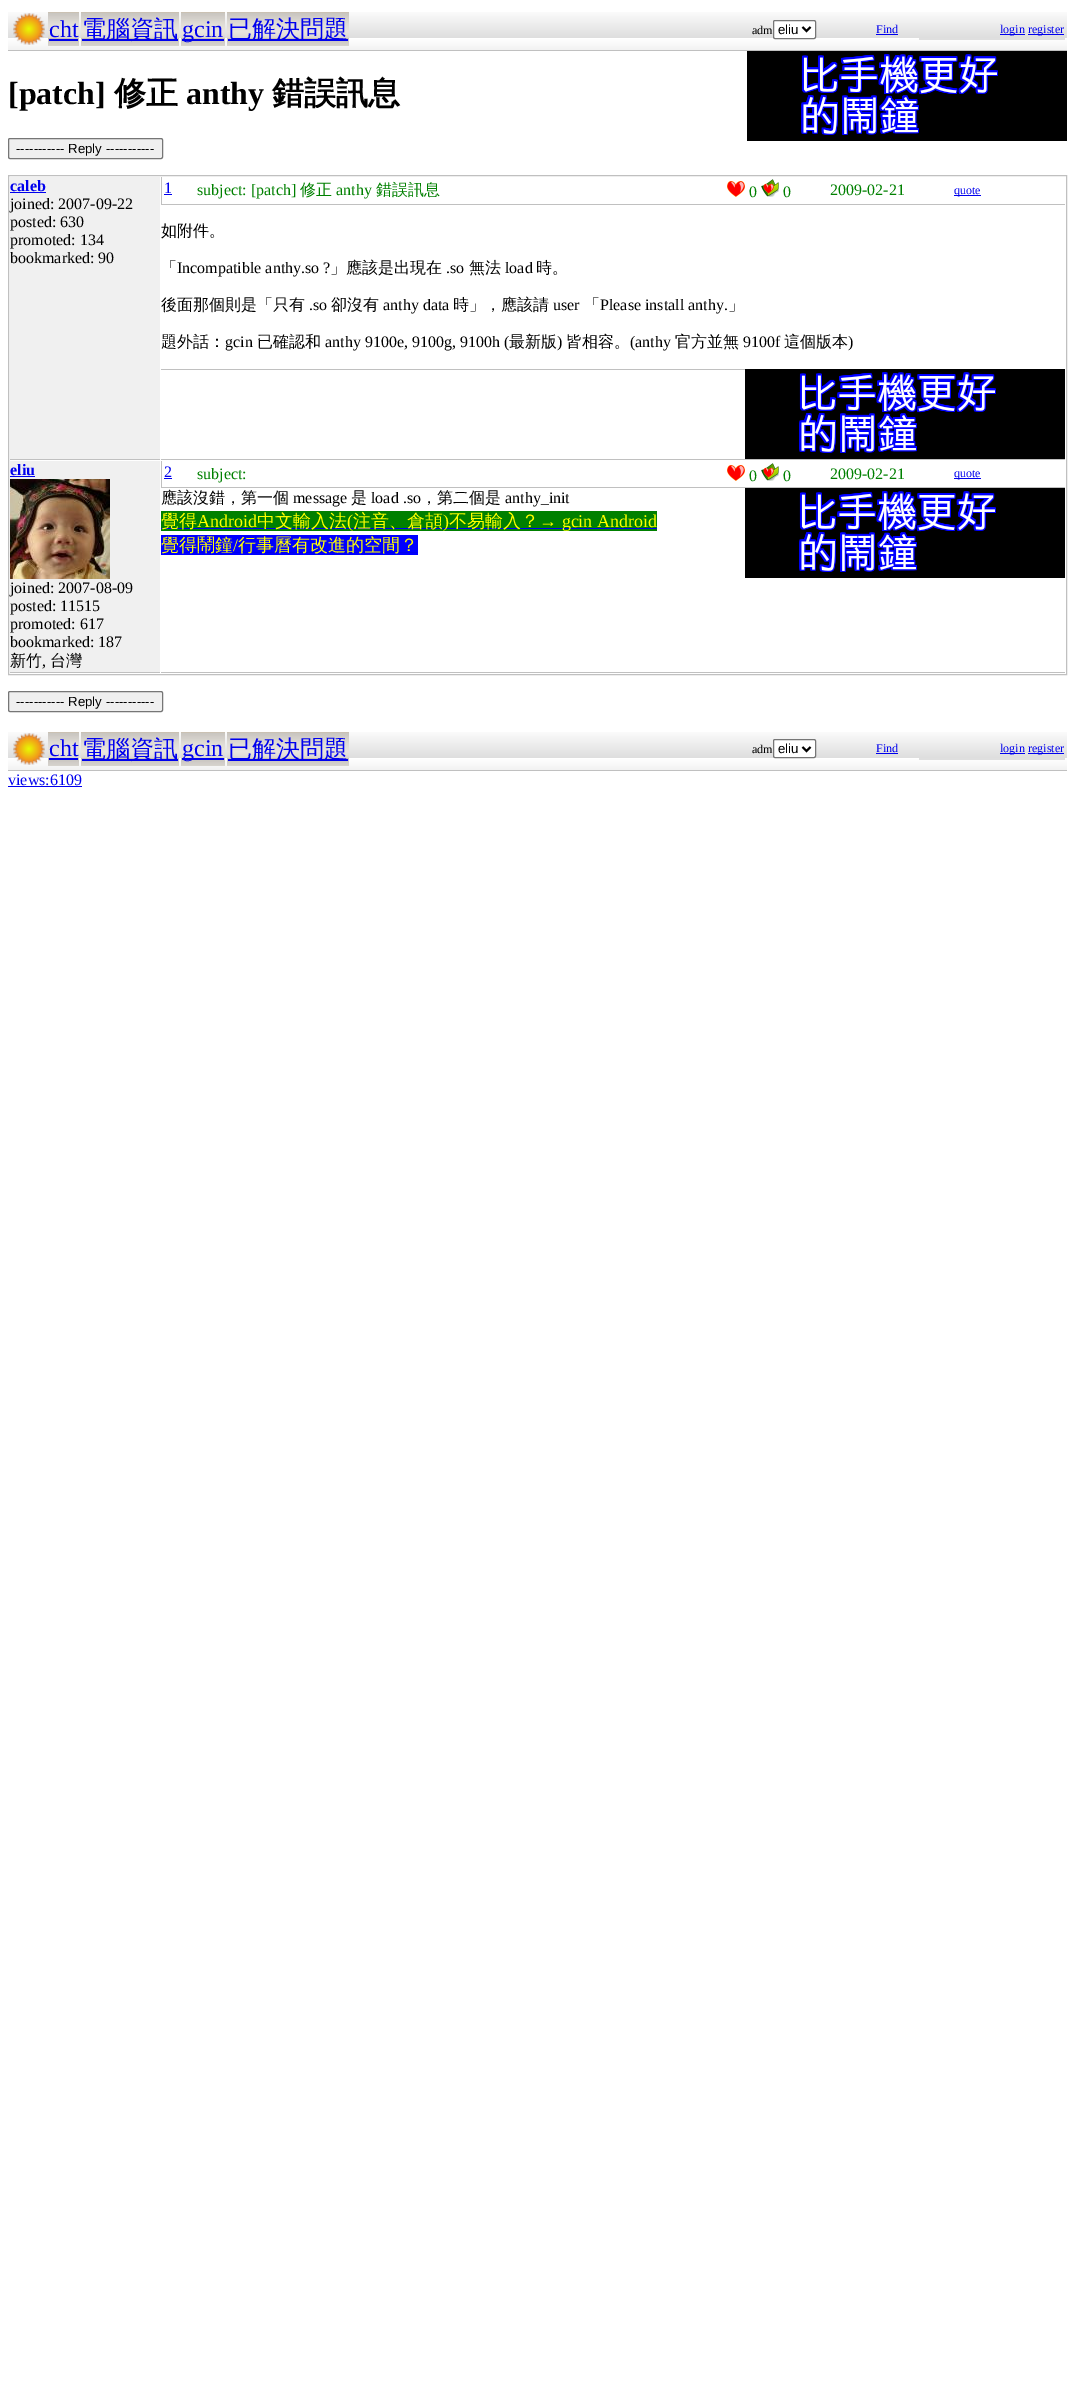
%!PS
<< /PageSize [1075 2400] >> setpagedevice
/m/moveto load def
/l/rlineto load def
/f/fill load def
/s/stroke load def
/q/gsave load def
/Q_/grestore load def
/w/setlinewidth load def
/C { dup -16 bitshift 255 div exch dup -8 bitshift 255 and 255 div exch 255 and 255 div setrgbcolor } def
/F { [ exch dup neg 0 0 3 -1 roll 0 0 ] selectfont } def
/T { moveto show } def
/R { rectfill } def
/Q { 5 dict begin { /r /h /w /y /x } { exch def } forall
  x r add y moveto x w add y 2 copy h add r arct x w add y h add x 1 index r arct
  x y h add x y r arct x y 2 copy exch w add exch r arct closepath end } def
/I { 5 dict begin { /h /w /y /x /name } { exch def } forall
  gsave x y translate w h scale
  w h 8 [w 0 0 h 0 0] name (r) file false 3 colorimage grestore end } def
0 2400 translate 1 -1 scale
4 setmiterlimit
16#FFFFFF C
0 0 1075 2400 R
(1.rgb) 8 12 1059 38 I
16#C0C0C0 C
8 50 1059 1 R
(2.rgb) 13 13 32 32 I
(3.rgb) 48 12 31 34 I
/LiberationSerif-Regular 24 F
16#0000EE C
(cht) 49 37 T
49 39 29 2 R
(4.rgb) 81 12 98 34 I
82 39 96 2 R
/WenQuanYiZenHei-Medium 24 F
(電腦資訊) 82 37 T
(5.rgb) 181 12 44 34 I
182 39 42 2 R
/LiberationSerif-Regular 24 F
(gcin) 182 37 T
(6.rgb) 227 12 122 34 I
228 39 120 2 R
/WenQuanYiZenHei-Medium 24 F
(已解決問題) 228 37 T
/LiberationSerif-Regular 12 F
16#000000 C
(adm) 752 34 T
16#FFFFFF C
773.5 20.5 42 18 1.5 Q q f Q_
16#767676 C
s
16#000000 C
2 w
802.5 27 m 4 4 l 4 -4 l s
/LiberationSans-Regular 13.25 F
(eliu) 778 34 T
/LiberationSerif-Regular 12 F
16#0000EE C
(Find) 876 33 T
876 34 22 1 R
16#DFDFDF C
919 38 146 2 R
16#0000EE C
1000 34 25 1 R
(login) 1000 33 T
1028 34 36 1 R
(register) 1028 33 T
/LiberationSerif-Bold 32 F
16#000000 C
([patch]) 8 104 T
/WenQuanYiZenHei-Bold 32 F
(修正) 114 104 T
/LiberationSerif-Bold 32 F
(anthy) 186 104 T
/WenQuanYiZenHei-Bold 32 F
(錯誤訊息) 272 104 T
(7.rgb) 747 51 320 90 I
16#EFEFEF C
8.5 138.5 154 20 1.5 Q q f Q_
16#767676 C
1 w
s
/LiberationSans-Regular 13.25 F
16#000000 C
(----------- Reply -----------) 16 153 T
16#C0C0C0 C
8.5 175.5 1058 499 rectstroke
16#F0F0F0 C
10 177 150 282 R
16#C0C0C0 C
10 459 150 1 R
/LiberationSerif-Bold 16 F
16#0000EE C
(caleb) 10 191 T
10 192 36 1 R
/LiberationSerif-Regular 16 F
16#000000 C
(joined: 2007-09-22) 10 209 T
(posted: 630) 10 227 T
(promoted: 134) 10 245 T
(bookmarked: 90) 10 263 T
16#C0C0C0 C
161 459 904 1 R
161 204 904 1 R
161 177 1 28 R
16#0000EE C
(1) 164 193 T
164 194 8 1 R
16#008000 C
(subject: [patch]) 197 195 T
/WenQuanYiZenHei-Medium 16 F
(修正) 300 195 T
/LiberationSerif-Regular 16 F
(anthy) 336 195 T
/WenQuanYiZenHei-Medium 16 F
(錯誤訊息) 376 195 T
(8.rgb) 727 181 18 16 I
/LiberationSerif-Regular 16 F
(0) 749 197 T
(9.rgb) 761 179 18 18 I
(0) 783 197 T
(2009-02-21) 830 195 T
16#0000EE C
954 195 27 1 R
/LiberationSerif-Regular 12 F
(quote) 954 194 T
/WenQuanYiZenHei-Medium 16 F
16#000000 C
(如附件。) 161 236 T
(「) 161 273 T
/LiberationSerif-Regular 16 F
(Incompatible anthy.so ?) 177 273 T
/WenQuanYiZenHei-Medium 16 F
(」應該是出現在) 330 273 T
/LiberationSerif-Regular 16 F
(.so) 446 273 T
/WenQuanYiZenHei-Medium 16 F
(無法) 469 273 T
/LiberationSerif-Regular 16 F
(load) 505 273 T
/WenQuanYiZenHei-Medium 16 F
(時。) 536 273 T
(後面那個則是「只有) 161 310 T
/LiberationSerif-Regular 16 F
(.so) 309 310 T
/WenQuanYiZenHei-Medium 16 F
(卻沒有) 331 310 T
/LiberationSerif-Regular 16 F
(anthy data) 383 310 T
/WenQuanYiZenHei-Medium 16 F
(時」，應該請) 453 310 T
/LiberationSerif-Regular 16 F
(user) 553 310 T
/WenQuanYiZenHei-Medium 16 F
(「) 584 310 T
/LiberationSerif-Regular 16 F
(Please install anthy.) 600 310 T
/WenQuanYiZenHei-Medium 16 F
(」) 728 310 T
(題外話：) 161 347 T
/LiberationSerif-Regular 16 F
(gcin) 225 347 T
/WenQuanYiZenHei-Medium 16 F
(已確認和) 257 347 T
/LiberationSerif-Regular 16 F
(anthy 9100e, 9100g, 9100h \() 325 347 T
/WenQuanYiZenHei-Medium 16 F
(最新版) 509 347 T
/LiberationSerif-Regular 16 F
(\)) 557 347 T
/WenQuanYiZenHei-Medium 16 F
(皆相容。) 566 347 T
/LiberationSerif-Regular 16 F
(\(anthy) 630 347 T
/WenQuanYiZenHei-Medium 16 F
(官方並無) 675 347 T
/LiberationSerif-Regular 16 F
(9100f) 743 347 T
/WenQuanYiZenHei-Medium 16 F
(這個版本) 784 347 T
/LiberationSerif-Regular 16 F
(\)) 848 347 T
(7.rgb) 745 369 320 90 I
16#C0C0C0 C
161 369 584 1 R
16#F0F0F0 C
10 461 150 211 R
16#C0C0C0 C
10 672 150 1 R
/LiberationSerif-Bold 16 F
16#0000EE C
(eliu) 10 475 T
10 476 25 1 R
(10.rgb) 10 479 100 100 I
/LiberationSerif-Regular 16 F
16#000000 C
(joined: 2007-08-09) 10 593 T
(posted: 11515) 10 611 T
(promoted: 617) 10 629 T
(bookmarked: 187) 10 647 T
/WenQuanYiZenHei-Medium 16 F
(新竹) 10 666 T
/LiberationSerif-Regular 16 F
(,) 42 666 T
/WenQuanYiZenHei-Medium 16 F
(台灣) 50 666 T
16#C0C0C0 C
161 672 904 1 R
161 487 904 1 R
161 461 1 27 R
/LiberationSerif-Regular 16 F
16#0000EE C
(2) 164 477 T
164 478 8 1 R
16#008000 C
(subject:) 197 479 T
(8.rgb) 727 465 18 16 I
(0) 749 481 T
(9.rgb) 761 463 18 18 I
(0) 783 481 T
(2009-02-21) 830 479 T
16#0000EE C
954 478 27 1 R
/LiberationSerif-Regular 12 F
(quote) 954 477 T
/WenQuanYiZenHei-Medium 16 F
16#000000 C
(應該沒錯，第一個) 161 503 T
/LiberationSerif-Regular 16 F
(message) 293 503 T
/WenQuanYiZenHei-Medium 16 F
(是) 351 503 T
/LiberationSerif-Regular 16 F
(load .so) 371 503 T
/WenQuanYiZenHei-Medium 16 F
(，第二個是) 421 503 T
/LiberationSerif-Regular 16 F
(anthy_init) 505 503 T
(7.rgb) 745 488 320 90 I
16#008000 C
161 511 496 20 R
16#0000EE C
161 528 496 1 R
/WenQuanYiZenHei-Medium 18 F
16#FFFF00 C
(覺得) 161 527 T
/LiberationSerif-Regular 18 F
(Android) 197 527 T
/WenQuanYiZenHei-Medium 18 F
(中文輸入法) 257 527 T
/LiberationSerif-Regular 18 F
(\() 347 527 T
/WenQuanYiZenHei-Medium 18 F
(注音、倉頡) 353 527 T
/LiberationSerif-Regular 18 F
(\)) 443 527 T
/WenQuanYiZenHei-Medium 18 F
(不易輸入？) 449 527 T
/LiberationSerif-Regular 18 F
(→ gcin Android) 539 527 T
16#0000FF C
161 535 257 20 R
16#0000EE C
161 552 257 1 R
/WenQuanYiZenHei-Medium 18 F
16#FFFF00 C
(覺得鬧鐘) 161 551 T
/LiberationSerif-Regular 18 F
(/) 233 551 T
/WenQuanYiZenHei-Medium 18 F
(行事曆有改進的空間？) 238 551 T
16#EFEFEF C
8.5 691.5 154 20 1.5 Q q f Q_
16#767676 C
s
/LiberationSans-Regular 13.25 F
16#000000 C
(----------- Reply -----------) 16 706 T
(1.rgb) 8 732 1059 38 I
16#C0C0C0 C
8 770 1059 1 R
(2.rgb) 13 733 32 32 I
(3.rgb) 48 732 31 34 I
/LiberationSerif-Regular 24 F
16#0000EE C
(cht) 49 756 T
49 758 29 2 R
(4.rgb) 81 732 98 34 I
82 759 96 2 R
/WenQuanYiZenHei-Medium 24 F
(電腦資訊) 82 757 T
(5.rgb) 181 732 44 34 I
182 758 42 2 R
/LiberationSerif-Regular 24 F
(gcin) 182 756 T
(6.rgb) 227 732 122 34 I
228 759 120 2 R
/WenQuanYiZenHei-Medium 24 F
(已解決問題) 228 757 T
/LiberationSerif-Regular 12 F
16#000000 C
(adm) 752 753 T
16#FFFFFF C
773.5 739.5 42 18 1.5 Q q f Q_
16#767676 C
s
16#000000 C
2 w
802.5 747 m 4 4 l 4 -4 l s
/LiberationSans-Regular 13.25 F
(eliu) 778 753 T
/LiberationSerif-Regular 12 F
16#0000EE C
(Find) 876 752 T
876 753 22 1 R
16#DFDFDF C
919 758 146 2 R
16#0000EE C
1000 753 25 1 R
(login) 1000 752 T
1028 753 36 1 R
(register) 1028 752 T
/LiberationSerif-Regular 16 F
(views:6109) 8 785 T
8 786 74 1 R
showpage
